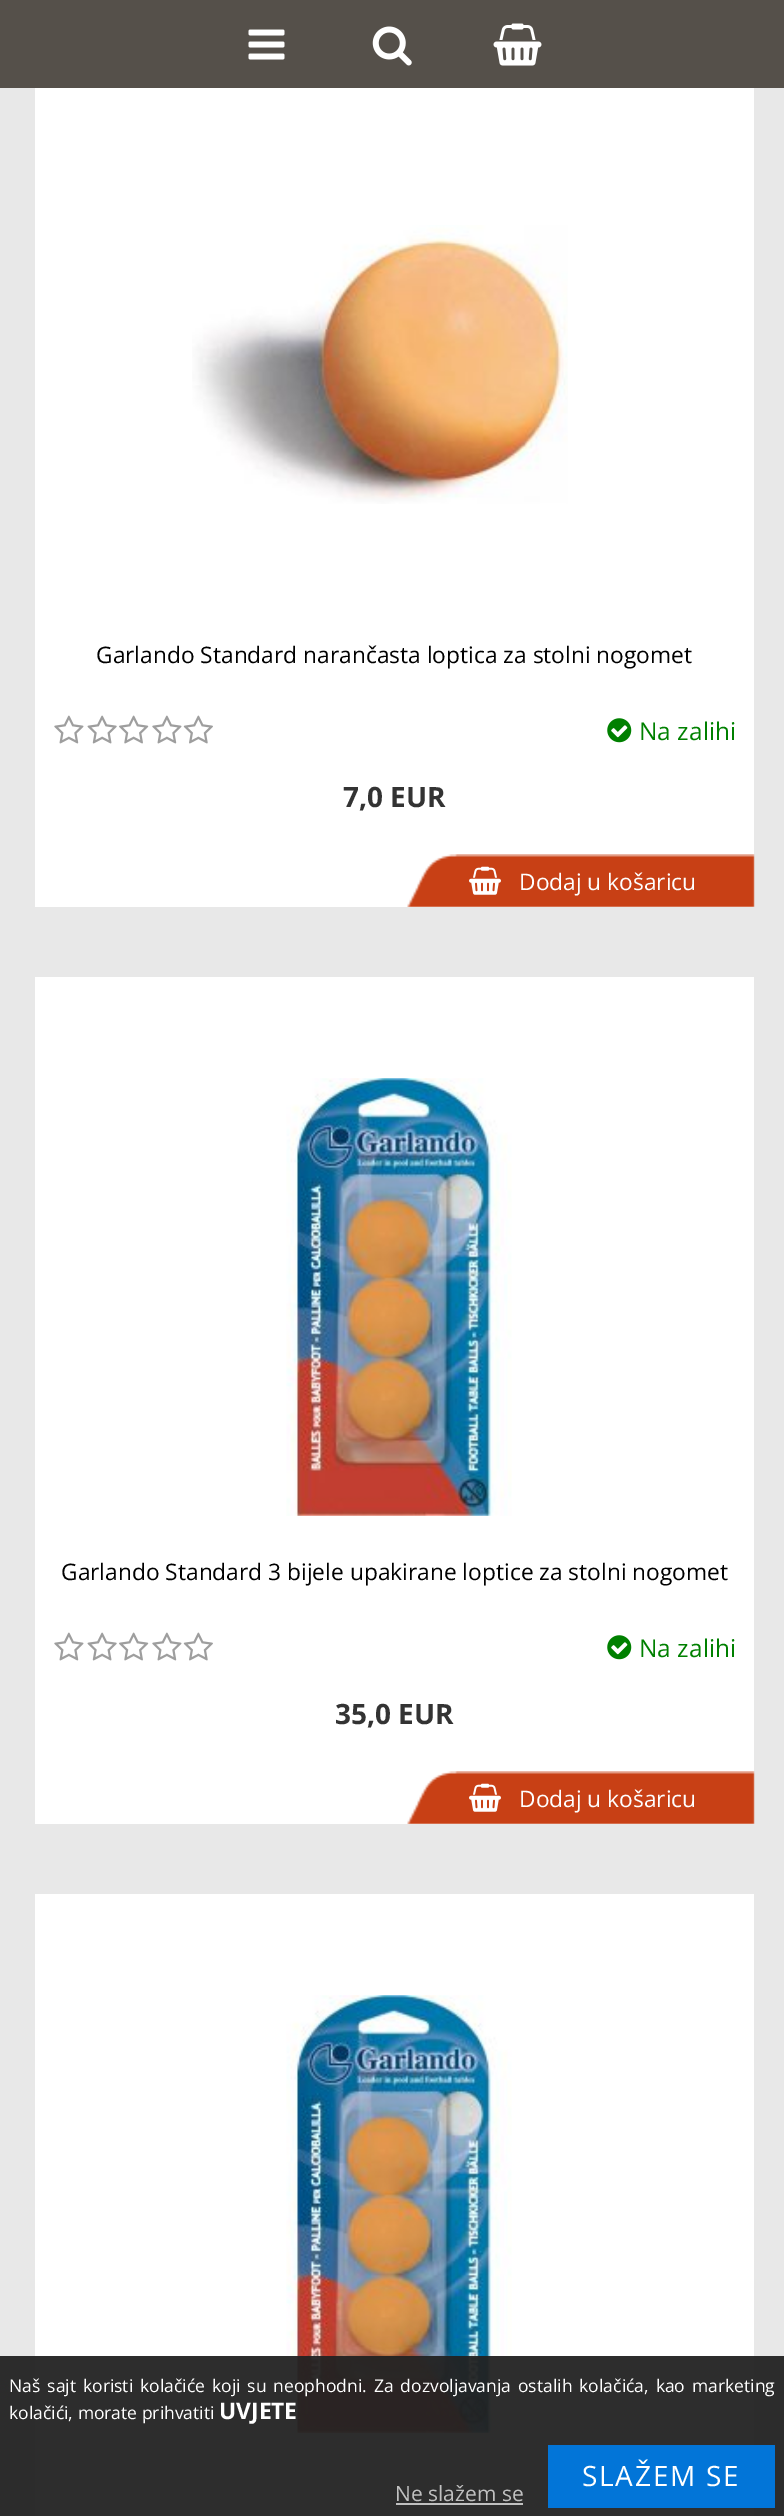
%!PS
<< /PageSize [784 2516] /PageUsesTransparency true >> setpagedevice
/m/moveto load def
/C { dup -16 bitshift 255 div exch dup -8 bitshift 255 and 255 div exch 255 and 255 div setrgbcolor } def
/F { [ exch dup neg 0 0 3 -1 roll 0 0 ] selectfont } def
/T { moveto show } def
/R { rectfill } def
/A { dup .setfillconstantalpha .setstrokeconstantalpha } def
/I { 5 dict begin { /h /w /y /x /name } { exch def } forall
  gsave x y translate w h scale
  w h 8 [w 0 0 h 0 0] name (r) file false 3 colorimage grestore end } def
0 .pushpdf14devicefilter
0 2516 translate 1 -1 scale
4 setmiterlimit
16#E8E8E8 C
0 0 784 2516 R
16#55504A C
0 0 784 88 R
(1.rgb) 248 29 37 31 I
(2.rgb) 372 26 40 40 I
(3.rgb) 493 23 49 43 I
16#FFFFFF C
35 88 719 819 R
(4.rgb) 192 225 376 279 I
/OpenSans-Regular 22.75 F
16#000000 C
(Garlando Standard narančasta loptica za stolni nogomet) 96 663 T
(5.rgb) 54 715 30 29 I
(6.rgb) 87 715 30 29 I
(7.rgb) 119 715 30 29 I
(5.rgb) 152 715 30 29 I
(8.rgb) 183 715 30 29 I
(9.rgb) 607 718 25 25 I
/OpenSans-Regular 24.5 F
16#008000 C
(Na zalihi) 639 740 T
/OpenSans-Bold 28 F
16#333333 C
(7,0 EUR) 343 807 T
(10.rgb) 407 854 348 53 I
(11.rgb) 469 866 32 29 I
/OpenSans-Regular 22.75 F
16#FFFFFF C
(Dodaj u košaricu) 519 890 T
35 977 719 847 R
(12.rgb) 286 1078 226 438 I
16#000000 C
(Garlando Standard 3 bijele upakirane loptice za stolni nogomet) 61 1580 T
(5.rgb) 54 1632 30 29 I
(6.rgb) 87 1632 30 29 I
(7.rgb) 119 1632 30 29 I
(5.rgb) 152 1632 30 29 I
(8.rgb) 183 1632 30 29 I
(9.rgb) 607 1635 25 25 I
/OpenSans-Regular 24.5 F
16#008000 C
(Na zalihi) 639 1657 T
/OpenSans-Bold 28 F
16#333333 C
(35,0 EUR) 335 1724 T
(10.rgb) 407 1771 348 53 I
(11.rgb) 469 1783 32 29 I
/OpenSans-Regular 22.75 F
16#FFFFFF C
(Dodaj u košaricu) 519 1807 T
35 1894 719 622 R
(12.rgb) 286 1995 226 438 I
0.95 A
16#222222 C
0 2356 784 160 R
/OpenSans-Regular 17.5 F
1 A
16#FFFFFF C
9 2392 m 2.4 0 32 (Naš sajt koristi kolačiće koji su neophodni. Za dozvoljavanja ostalih kolačića, kao marketing) widthshow
(kolačići, morate prihvatiti) 9 2419 T
/OpenSans-Bold 22.75 F
(UVJETE) 219 2419 T
16#0275D8 C
548 2445 227 63 R
/OpenSans-Regular 28 F
16#FFFFFF C
582 2486 m 1.75 0 (SLAŽEM SE) ashow
/OpenSans-Regular 21 F
16#C0C0C0 C
(Ne slažem se) 395 2501 T
0.7 A
16#FFFFFF C
396 2503 127 2 R
.poppdf14devicefilter showpage
